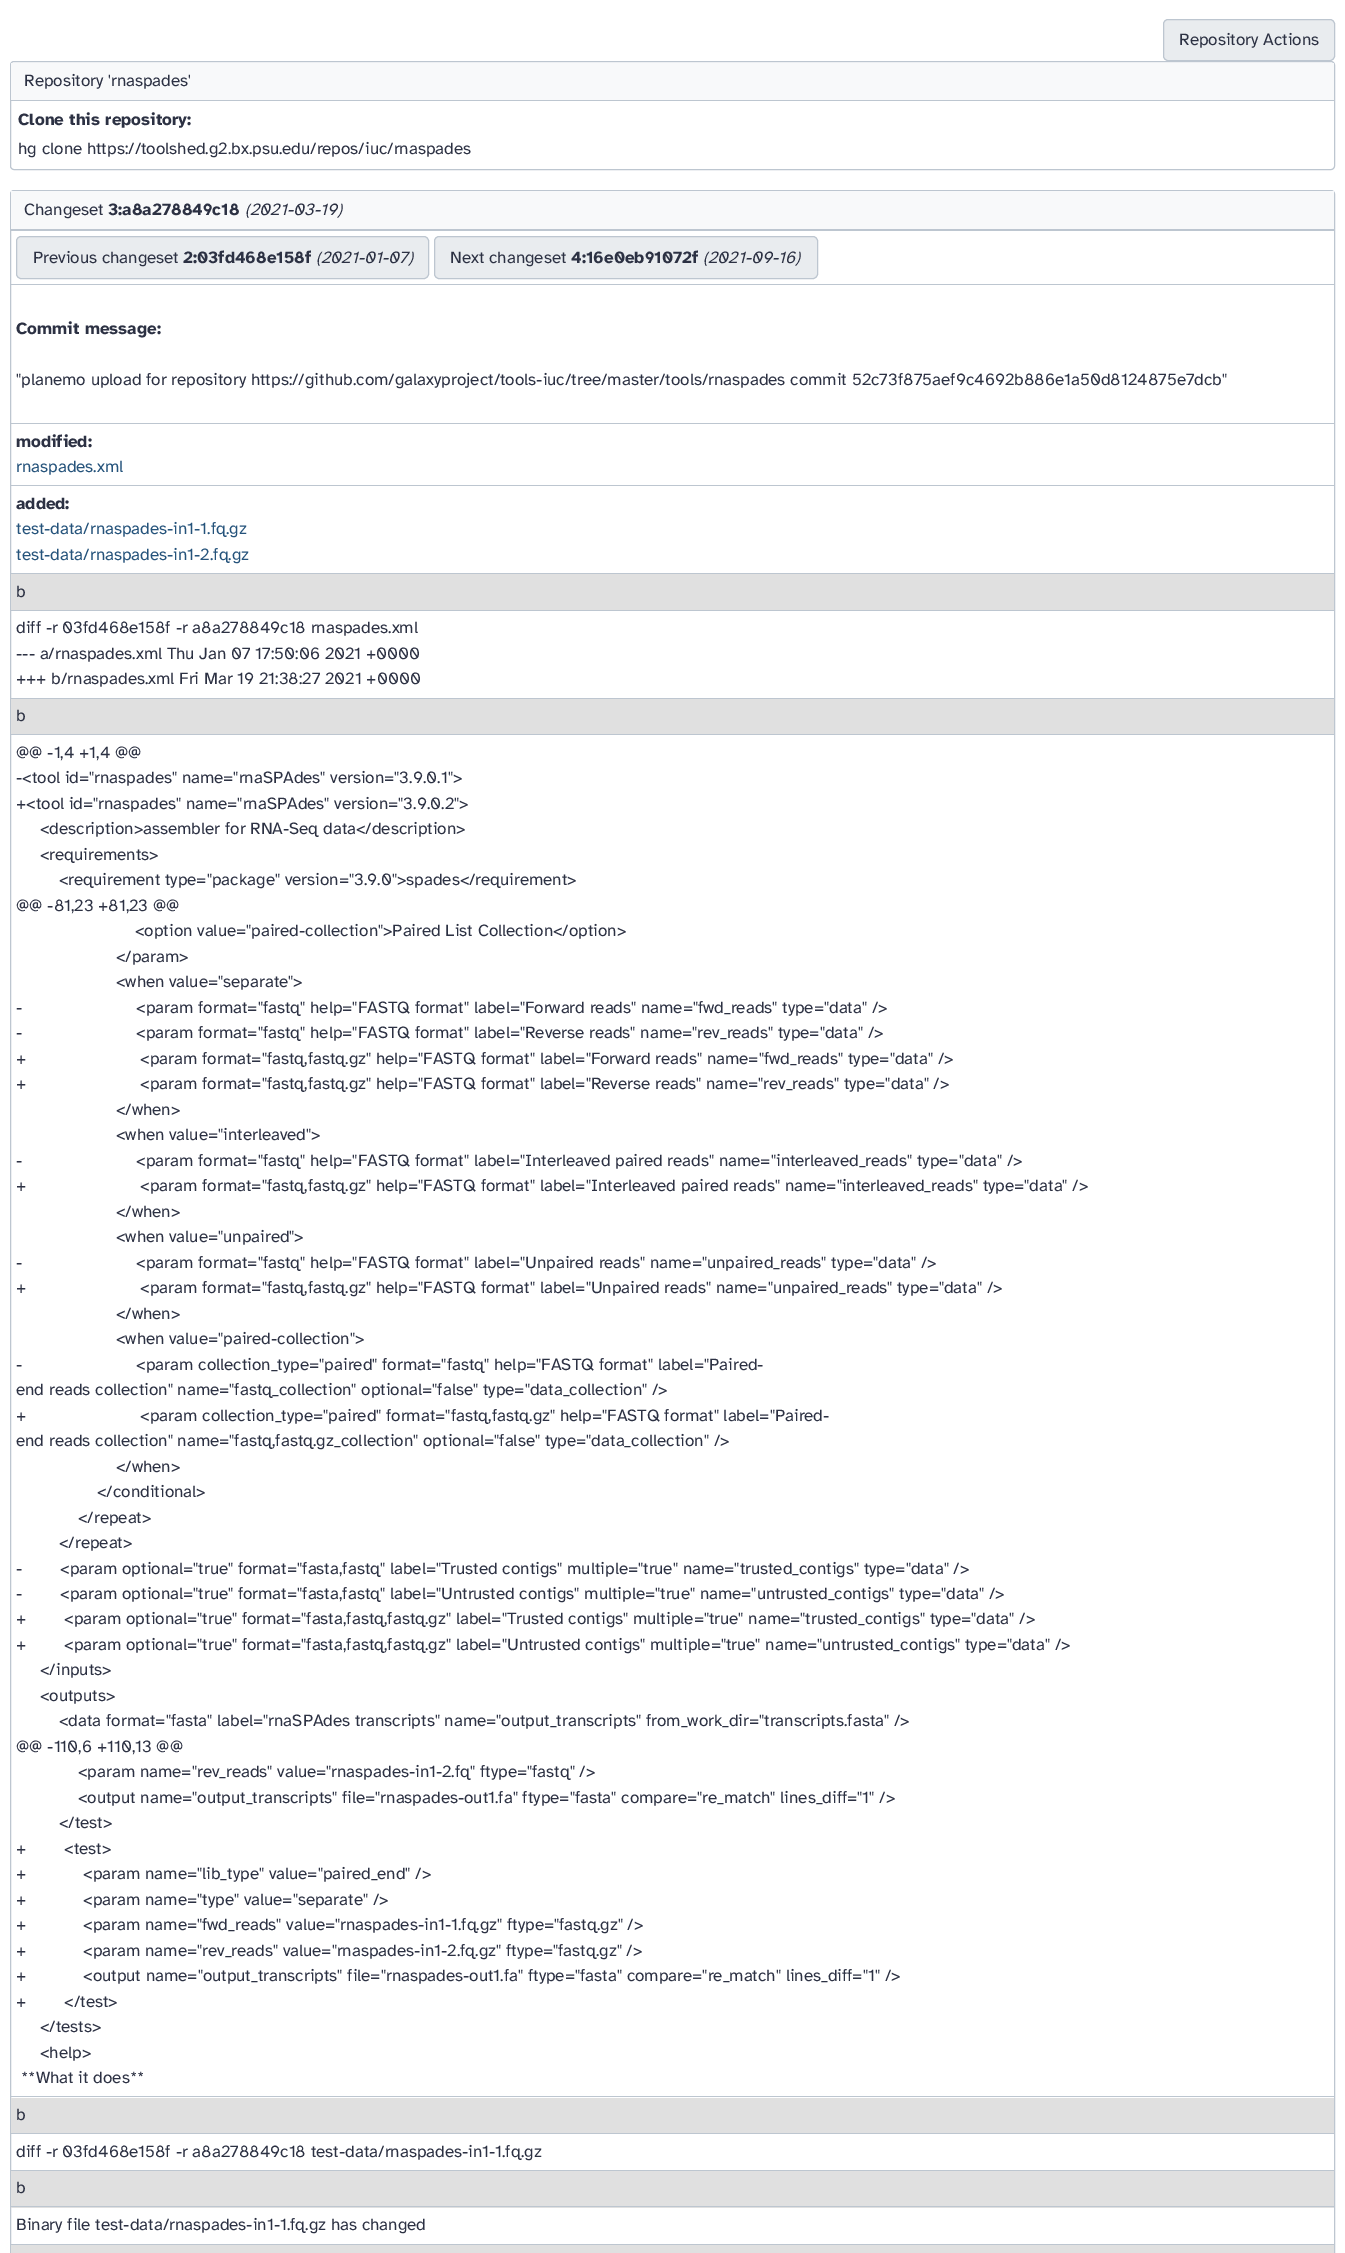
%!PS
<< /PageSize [1345 2253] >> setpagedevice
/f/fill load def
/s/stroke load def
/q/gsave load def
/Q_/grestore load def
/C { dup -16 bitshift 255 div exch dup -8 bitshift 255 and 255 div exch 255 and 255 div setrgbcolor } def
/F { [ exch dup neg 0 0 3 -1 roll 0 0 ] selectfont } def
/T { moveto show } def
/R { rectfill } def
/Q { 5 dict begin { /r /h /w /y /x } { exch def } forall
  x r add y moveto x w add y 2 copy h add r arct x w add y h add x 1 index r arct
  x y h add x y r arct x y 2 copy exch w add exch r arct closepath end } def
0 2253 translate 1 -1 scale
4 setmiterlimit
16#FFFFFF C
0 0 1345 2253 R
16#E9ECEF C
1163.5 19.5 171 41 4.5 Q q f Q_
16#BDC6D0 C
s
/AtkinsonHyperlegible-Regular 17 F
16#2C3143 C
(Repository Actions) 1179 45 T
16#BDC6D0 C
10.5 61.5 1324 108 3.5 Q s
16#F8F9FA C
11 63 1323 37 R
16#BDC6D0 C
11 100 1323 1 R
16#2C3143 C
(Repository 'rnaspades') 24 86 T
/AtkinsonHyperlegible-Bold 17 F
(Clone this repository:) 18 125 T
/AtkinsonHyperlegible-Regular 17 F
(hg clone https://toolshed.g2.bx.psu.edu/repos/iuc/rnaspades) 18 154 T
16#BDC6D0 C
10.5 190.5 1324 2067 3.5 Q s
16#F8F9FA C
11 191 1323 38 R
16#BDC6D0 C
11 229 1323 1 R
16#2C3143 C
(Changeset) 24 215 T
/AtkinsonHyperlegible-Bold 17 F
(3:a8a278849c18) 108 215 T
/AtkinsonHyperlegible-Italic 17 F
(\(2021-03-19\)) 245 215 T
16#BDC6D0 C
11 230 1324 1 R
16#E9ECEF C
16.5 236.5 412 42 4.5 Q q f Q_
16#BDC6D0 C
s
/AtkinsonHyperlegible-Regular 17 F
16#2C3143 C
(Previous changeset) 33 263 T
/AtkinsonHyperlegible-Bold 17 F
(2:03fd468e158f) 183 263 T
/AtkinsonHyperlegible-Italic 17 F
(\(2021-01-07\)) 316 263 T
16#E9ECEF C
434.5 236.5 383 42 4.5 Q q f Q_
16#BDC6D0 C
s
/AtkinsonHyperlegible-Regular 17 F
16#2C3143 C
(Next changeset) 450 263 T
/AtkinsonHyperlegible-Bold 17 F
(4:16e0eb91072f) 571 263 T
/AtkinsonHyperlegible-Italic 17 F
(\(2021-09-16\)) 703 263 T
16#BDC6D0 C
11 284 1324 1 R
/AtkinsonHyperlegible-Bold 17 F
16#2C3143 C
(Commit message:) 16 334 T
/AtkinsonHyperlegible-Regular 17 F
("planemo upload for repository https://github.com/galaxyproject/tools-iuc/tree/master/tools/rnaspades commit 52c73f875aef9c4692b886e1a50d8124875e7dcb") 16 385 T
16#BDC6D0 C
11 423 1324 1 R
/AtkinsonHyperlegible-Bold 17 F
16#2C3143 C
(modified:) 16 447 T
/AtkinsonHyperlegible-Regular 17 F
16#25537B C
(rnaspades.xml) 16 472 T
16#BDC6D0 C
11 485 1324 1 R
/AtkinsonHyperlegible-Bold 17 F
16#2C3143 C
(added:) 16 509 T
/AtkinsonHyperlegible-Regular 17 F
16#25537B C
(test-data/rnaspades-in1-1.fq.gz) 16 534 T
(test-data/rnaspades-in1-2.fq.gz) 16 560 T
16#E0E0E0 C
11 574 1323 36 R
16#BDC6D0 C
11 573 1324 1 R
16#2C3143 C
(b) 16 597 T
16#BDC6D0 C
11 610 1324 1 R
16#2C3143 C
(diff -r 03fd468e158f -r a8a278849c18 rnaspades.xml) 16 633 T
(--- a/rnaspades.xml Thu Jan 07 17:50:06 2021 +0000) 16 659 T
(+++ b/rnaspades.xml Fri Mar 19 21:38:27 2021 +0000) 16 684 T
16#E0E0E0 C
11 699 1323 35 R
16#BDC6D0 C
11 698 1324 1 R
16#2C3143 C
(b) 16 721 T
16#BDC6D0 C
11 734 1324 1 R
16#2C3143 C
(@@ -1,4 +1,4 @@) 16 758 T
(-<tool id="rnaspades" name="rnaSPAdes" version="3.9.0.1">) 16 783 T
(+<tool id="rnaspades" name="rnaSPAdes" version="3.9.0.2">) 16 809 T
(<description>assembler for RNA-Seq data</description>) 40 834 T
(<requirements>) 40 860 T
(<requirement type="package" version="3.9.0">spades</requirement>) 59 885 T
(@@ -81,23 +81,23 @@) 16 911 T
(<option value="paired-collection">Paired List Collection</option>) 135 936 T
(</param>) 116 962 T
(<when value="separate">) 116 987 T
(-                        <param format="fastq" help="FASTQ format" label="Forward reads" name="fwd_reads" type="data" />) 16 1013 T
(-                        <param format="fastq" help="FASTQ format" label="Reverse reads" name="rev_reads" type="data" />) 16 1038 T
(+                        <param format="fastq,fastq.gz" help="FASTQ format" label="Forward reads" name="fwd_reads" type="data" />) 16 1064 T
(+                        <param format="fastq,fastq.gz" help="FASTQ format" label="Reverse reads" name="rev_reads" type="data" />) 16 1089 T
(</when>) 116 1115 T
(<when value="interleaved">) 116 1140 T
(-                        <param format="fastq" help="FASTQ format" label="Interleaved paired reads" name="interleaved_reads" type="data" />) 16 1166 T
(+                        <param format="fastq,fastq.gz" help="FASTQ format" label="Interleaved paired reads" name="interleaved_reads" type="data" />) 16 1191 T
(</when>) 116 1217 T
(<when value="unpaired">) 116 1242 T
(-                        <param format="fastq" help="FASTQ format" label="Unpaired reads" name="unpaired_reads" type="data" />) 16 1268 T
(+                        <param format="fastq,fastq.gz" help="FASTQ format" label="Unpaired reads" name="unpaired_reads" type="data" />) 16 1293 T
(</when>) 116 1319 T
(<when value="paired-collection">) 116 1344 T
(-                        <param collection_type="paired" format="fastq" help="FASTQ format" label="Paired-) 16 1370 T
(end reads collection" name="fastq_collection" optional="false" type="data_collection" />) 16 1395 T
(+                        <param collection_type="paired" format="fastq,fastq.gz" help="FASTQ format" label="Paired-) 16 1421 T
(end reads collection" name="fastq,fastq.gz_collection" optional="false" type="data_collection" />) 16 1446 T
(</when>) 116 1472 T
(</conditional>) 97 1497 T
(</repeat>) 78 1523 T
(</repeat>) 59 1548 T
(-        <param optional="true" format="fasta,fastq" label="Trusted contigs" multiple="true" name="trusted_contigs" type="data" />) 16 1574 T
(-        <param optional="true" format="fasta,fastq" label="Untrusted contigs" multiple="true" name="untrusted_contigs" type="data" />) 16 1599 T
(+        <param optional="true" format="fasta,fastq,fastq.gz" label="Trusted contigs" multiple="true" name="trusted_contigs" type="data" />) 16 1624 T
(+        <param optional="true" format="fasta,fastq,fastq.gz" label="Untrusted contigs" multiple="true" name="untrusted_contigs" type="data" />) 16 1650 T
(</inputs>) 40 1675 T
(<outputs>) 40 1701 T
(<data format="fasta" label="rnaSPAdes transcripts" name="output_transcripts" from_work_dir="transcripts.fasta" />) 59 1726 T
(@@ -110,6 +110,13 @@) 16 1752 T
(<param name="rev_reads" value="rnaspades-in1-2.fq" ftype="fastq" />) 78 1777 T
(<output name="output_transcripts" file="rnaspades-out1.fa" ftype="fasta" compare="re_match" lines_diff="1" />) 78 1803 T
(</test>) 59 1828 T
(+        <test>) 16 1854 T
(+            <param name="lib_type" value="paired_end" />) 16 1879 T
(+            <param name="type" value="separate" />) 16 1905 T
(+            <param name="fwd_reads" value="rnaspades-in1-1.fq.gz" ftype="fastq.gz" />) 16 1930 T
(+            <param name="rev_reads" value="rnaspades-in1-2.fq.gz" ftype="fastq.gz" />) 16 1956 T
(+            <output name="output_transcripts" file="rnaspades-out1.fa" ftype="fasta" compare="re_match" lines_diff="1" />) 16 1981 T
(+        </test>) 16 2007 T
(</tests>) 40 2032 T
(<help>) 40 2058 T
(**What it does**) 21 2083 T
16#E0E0E0 C
11 2098 1323 35 R
16#BDC6D0 C
11 2096 1324 1 R
16#2C3143 C
(b) 16 2120 T
16#BDC6D0 C
11 2133 1324 1 R
16#2C3143 C
(diff -r 03fd468e158f -r a8a278849c18 test-data/rnaspades-in1-1.fq.gz) 16 2157 T
16#E0E0E0 C
11 2171 1323 37 R
16#BDC6D0 C
11 2170 1324 1 R
16#2C3143 C
(b) 16 2193 T
16#BDC6D0 C
11 2206 1324 1 R
16#2C3143 C
(Binary file test-data/rnaspades-in1-1.fq.gz has changed) 16 2230 T
16#E0E0E0 C
11 2245 1323 8 R
16#BDC6D0 C
11 2244 1324 1 R
showpage
